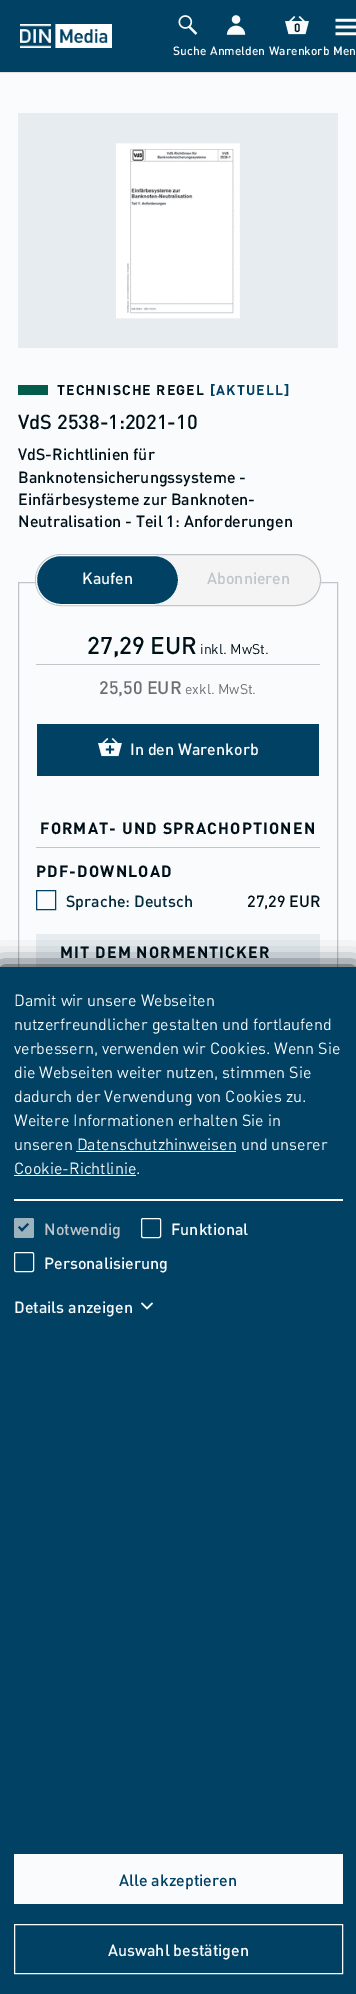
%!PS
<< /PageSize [356 1994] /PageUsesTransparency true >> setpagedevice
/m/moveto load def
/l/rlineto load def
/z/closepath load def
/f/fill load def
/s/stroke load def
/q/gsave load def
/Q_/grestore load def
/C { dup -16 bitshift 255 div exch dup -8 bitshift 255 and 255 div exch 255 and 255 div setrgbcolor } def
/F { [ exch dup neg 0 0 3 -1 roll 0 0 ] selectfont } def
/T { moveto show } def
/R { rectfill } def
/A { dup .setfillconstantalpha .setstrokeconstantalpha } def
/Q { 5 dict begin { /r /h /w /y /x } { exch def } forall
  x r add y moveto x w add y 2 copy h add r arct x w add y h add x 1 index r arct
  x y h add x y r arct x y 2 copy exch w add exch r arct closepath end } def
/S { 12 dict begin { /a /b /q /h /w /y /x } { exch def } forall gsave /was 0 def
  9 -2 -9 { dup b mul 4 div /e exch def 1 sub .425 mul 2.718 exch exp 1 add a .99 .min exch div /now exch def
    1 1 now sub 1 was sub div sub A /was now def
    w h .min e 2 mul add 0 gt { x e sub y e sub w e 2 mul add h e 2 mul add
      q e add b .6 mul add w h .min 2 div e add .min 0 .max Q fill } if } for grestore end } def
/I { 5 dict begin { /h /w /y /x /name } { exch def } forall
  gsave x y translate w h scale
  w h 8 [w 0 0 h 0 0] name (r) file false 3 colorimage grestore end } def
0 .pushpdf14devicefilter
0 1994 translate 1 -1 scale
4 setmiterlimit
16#FAFBFC C
0 0 356 1994 R
16#E0E2E3 C
0 72 356 1 R
16#004164 C
0 0 356 72 R
(1.rgb) 20 24 92 24 I
(2.rgb) 178 15 20 20 I
/DIN-Medium 12 F
16#FAFBFC C
(Suche) 173 55 T
(3.rgb) 226 15 20 20 I
(Anmelden) 210 55 T
(4.rgb) 285 16 24 19 I
/DIN-Bold 12 F
16#001A28 C
(0) 294 32 T
/DIN-Medium 12 F
16#FAFBFC C
(Warenkorb) 269 55 T
(5.rgb) 335 18 21 18 I
(Men) 333 55 T
16#E6ECF0 C
18 113 320 235 R
(6.rgb) 116 143 124 176 I
16#015C4A C
18 385 30 10 R
/DIN-Bold 14 F
16#001019 C
57 395 m 1.1 0 (TECHNISCHE REGEL) ashow
16#004164 C
210 395 m 1.1 0 ([AKTUELL]) ashow
/DIN-Medium 20 F
16#001019 C
(VdS 2538-1:2021-10) 18 429 T
/DIN-Medium 16 F
(VdS-Richtlinien für) 18 460 T
(Banknotensicherungssysteme -) 18 483 T
(Einfärbesysteme zur Banknoten-) 18 505 T
(Neutralisation - Teil 1: Anforderungen) 18 527 T
16#C2C5C8 C
18.5 582.5 319 501 rectstroke
16#F4F4F4 C
35.5 554.5 285 51 25.5 Q q f Q_
16#C2C5C8 C
s
16#004164 C
36.5 555.5 142 49 24.5 Q q f Q_
16#FAFBFC C
s
(Kaufen) 82 584 T
16#C2C5C8 C
(Abonnieren) 207 584 T
/DIN-Medium 24 F
16#001019 C
(27,29 EUR) 87 654 T
/DIN-Regular 14 F
(inkl. MwSt.) 200 654 T
16#C2C5C8 C
36 664 284 1 R
/DIN-Medium 18 F
16#6B6F72 C
(25,50 EUR) 99 694 T
/DIN-Regular 14 F
(exkl. MwSt.) 185 694 T
16#004164 C
37 724 282 52 R
(7.rgb) 98 738 24 19 I
/DIN-Medium 16 F
16#FAFBFC C
(In den Warenkorb) 130 755 T
16#C2C5C8 C
36 847 284 1 R
/DIN-Bold 16 F
16#001019 C
40 834 m 1.1 0 (FORMAT- UND SPRACHOPTIONEN) ashow
36 877 m 1.1 0 (PDF-DOWNLOAD) ashow
16#004164 C
36.5 890.5 19 19 rectstroke
/DIN-Medium 16 F
16#00273C C
(Sprache: Deutsch) 66 907 T
16#001019 C
(27,29 EUR) 247 907 T
16#E6ECF0 C
36 934 284 33 R
/DIN-Bold 16 F
16#001019 C
60 958 m 1.1 0 (MIT DEM NORMENTICKER) ashow
0 967 356 1027 0 12 1 S
16#004164 C
0 967 356 1027 R
/DIN-Regular 16 F
16#FAFBFC C
(Damit wir unsere Webseiten) 14 1006 T
(nutzerfreundlicher gestalten und fortlaufend) 14 1030 T
(verbessern, verwenden wir Cookies. Wenn Sie) 14 1054 T
(die Webseiten weiter nutzen, stimmen Sie) 14 1078 T
(dadurch der Verwendung von Cookies zu.) 14 1102 T
(Weitere Informationen erhalten Sie in) 14 1126 T
(unseren Datenschutzhinweisen und unserer) 14 1150 T
76 1151 160 1 R
(Cookie-Richtlinie.) 14 1174 T
14 1175 122 1 R
14 1199 329 2 R
16#9DB2BD C
14 1218 20 20 2 Q f
16#004164 C
27.5 1223 m 1.5 1.5 l -7 7 l -1.5 -1.5 l z f
19.5 1226 m 4 4 l -1.5 1.5 l -4 -4 l z f
/DIN-Medium 16 F
16#C2C5C8 C
(Notwendig) 44 1235 T
16#FAFBFC C
141.5 1218.5 19 19 1.5 Q s
(Funktional) 171 1235 T
14.5 1252.5 19 19 1.5 Q s
(Personalisierung) 44 1269 T
(Details anzeigen) 14 1313 T
(8.rgb) 141 1302 12 8 I
14 1854 329 50 R
16#004164 C
(Alle akzeptieren) 119 1886 T
16#FAFBFC C
14.5 1924.5 328 49 rectstroke
(Auswahl bestätigen) 108 1956 T
.poppdf14devicefilter showpage
